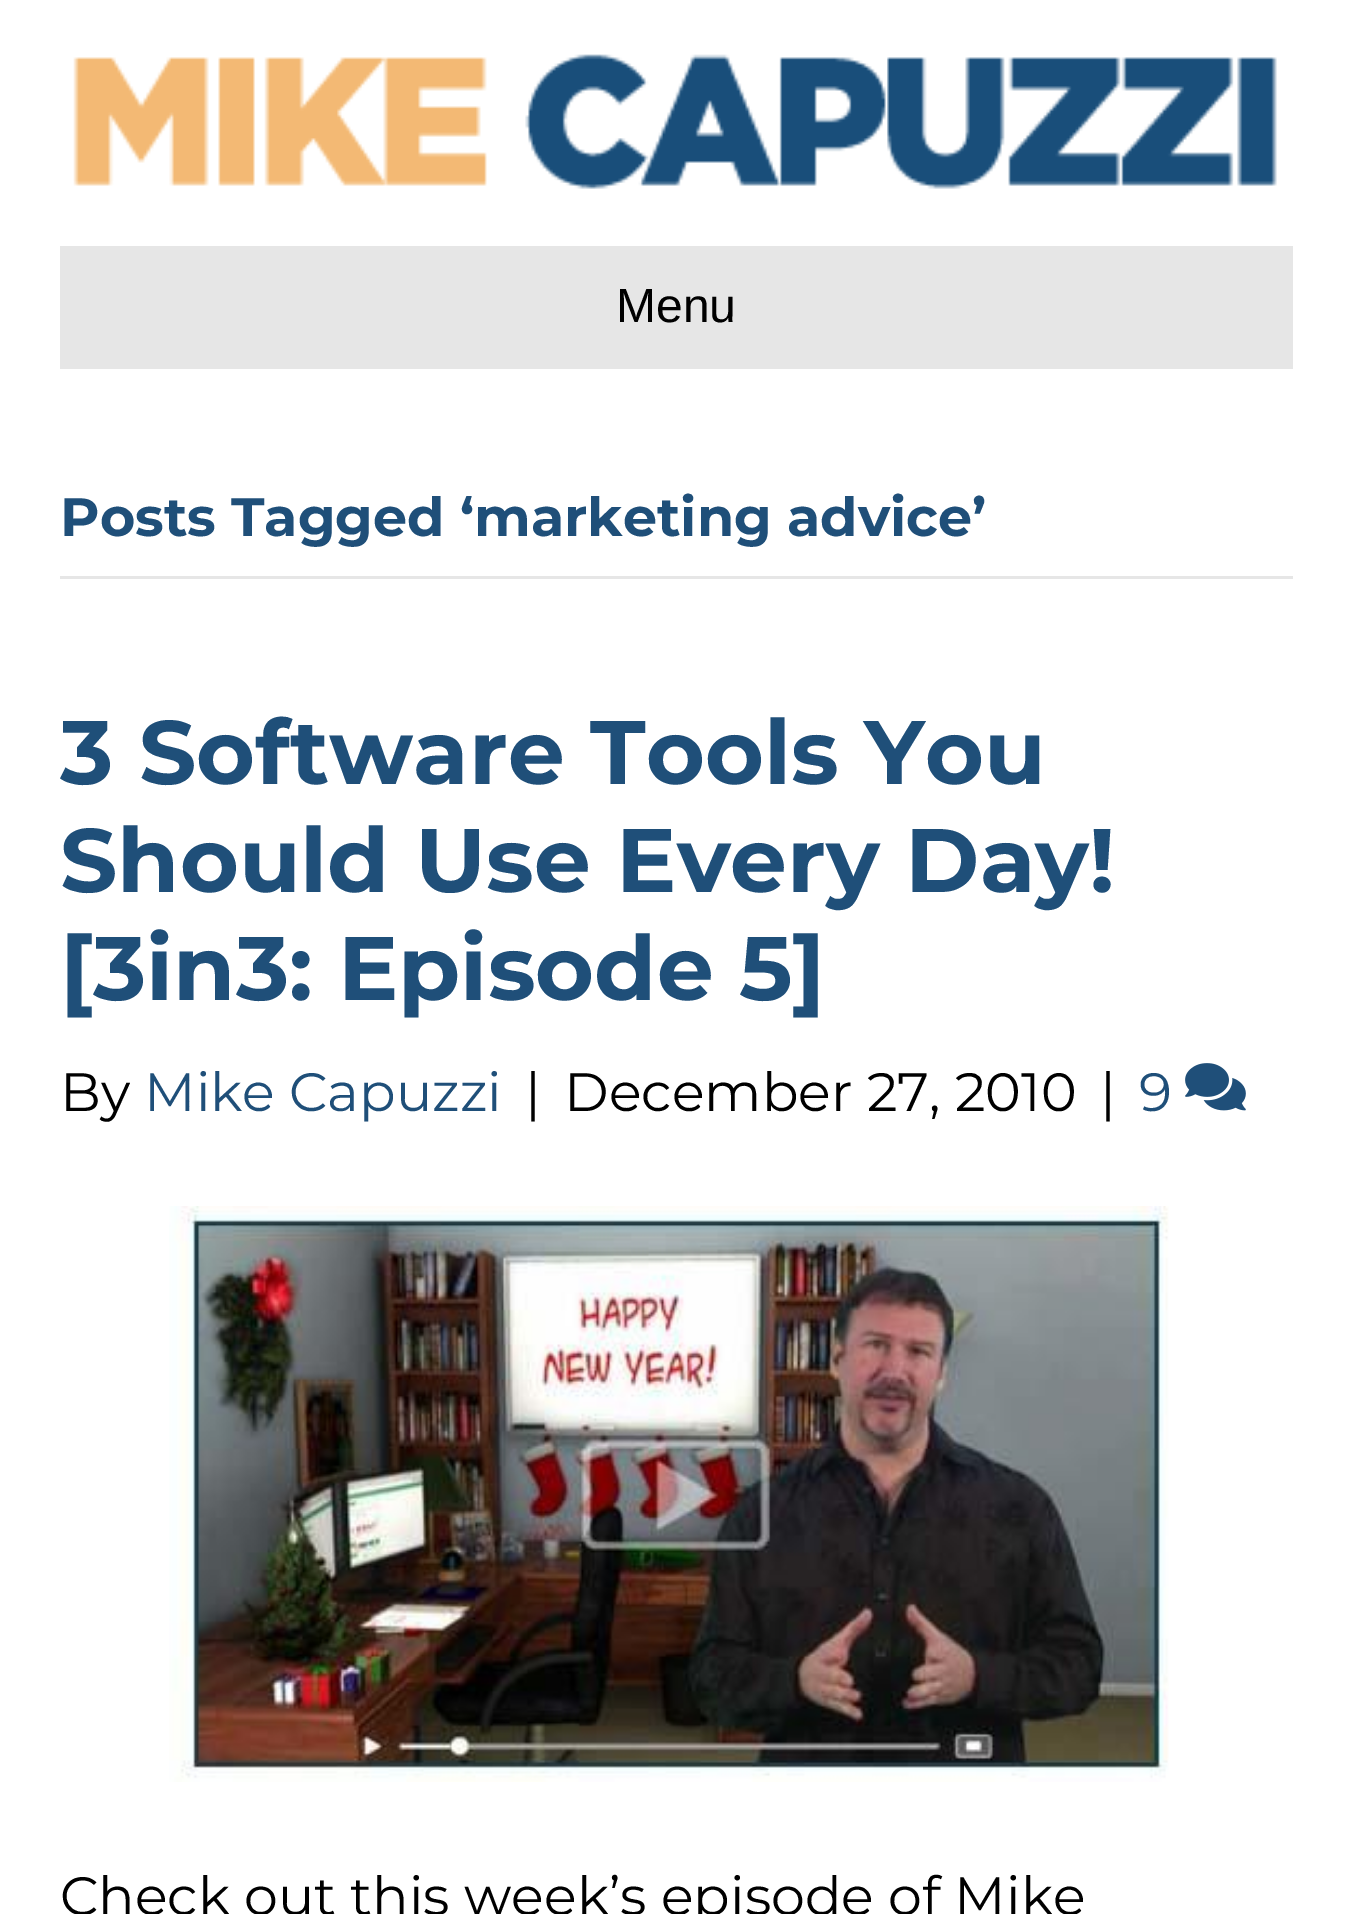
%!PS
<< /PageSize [1353 1914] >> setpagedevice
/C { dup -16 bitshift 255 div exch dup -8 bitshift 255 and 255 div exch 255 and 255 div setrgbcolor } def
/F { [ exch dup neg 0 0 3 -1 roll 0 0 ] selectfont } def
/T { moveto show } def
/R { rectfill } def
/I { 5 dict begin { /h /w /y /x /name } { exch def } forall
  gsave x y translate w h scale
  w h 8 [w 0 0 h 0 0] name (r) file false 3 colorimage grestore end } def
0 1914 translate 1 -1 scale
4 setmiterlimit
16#FFFFFF C
0 0 1353 1914 R
(1.rgb) 73 54 1204 135 I
16#E6E6E6 C
60 246 1233 123 R
/LiberationSans-Regular 48 F
16#000000 C
(Menu) 616 322 T
16#E6E6E6 C
60 576 1233 3 R
/Montserrat-Bold 54 F
16#1F4F79 C
(Posts Tagged ‘marketing advice’) 60 536 T
/Montserrat-Bold 90 F
(3 Software Tools You) 60 784 T
(Should Use Every Day!) 60 892 T
([3in3: Episode 5]) 60 1000 T
/Montserrat-Regular 54 F
16#000000 C
(By) 60 1111 T
16#1F4F79 C
(Mike Capuzzi) 144 1111 T
16#000000 C
(|) 525 1111 T
(December 27, 2010) 564 1111 T
(|) 1100 1111 T
16#1F4F79 C
(9) 1139 1111 T
(2.rgb) 1185 1063 61 48 I
(3.rgb) 169 1206 1000 576 I
16#000000 C
(Check out this week’s episode of Mike) 60 1915 T
showpage
